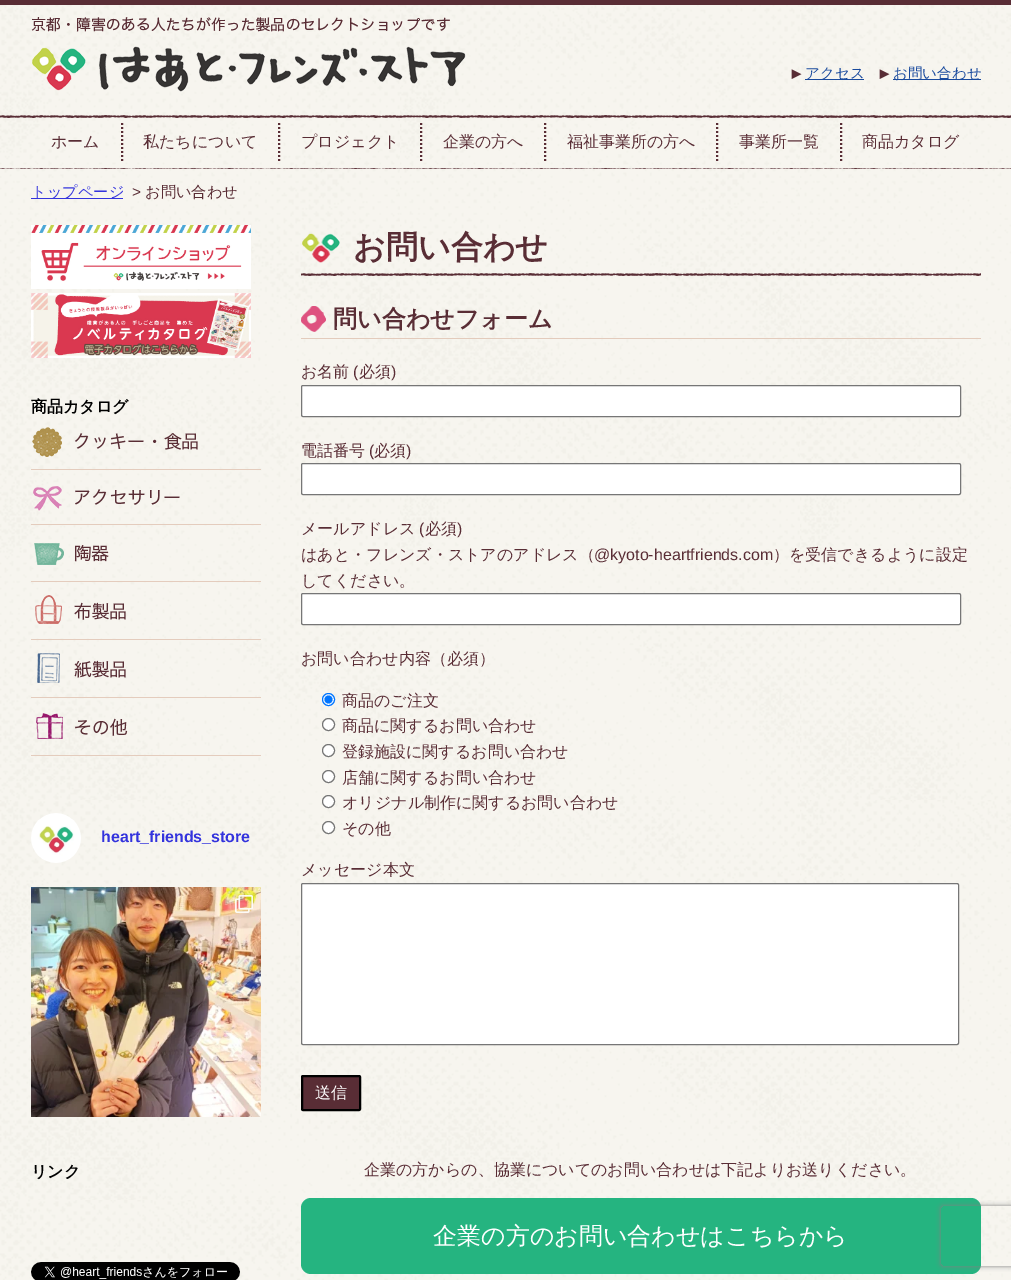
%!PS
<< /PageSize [1011 1280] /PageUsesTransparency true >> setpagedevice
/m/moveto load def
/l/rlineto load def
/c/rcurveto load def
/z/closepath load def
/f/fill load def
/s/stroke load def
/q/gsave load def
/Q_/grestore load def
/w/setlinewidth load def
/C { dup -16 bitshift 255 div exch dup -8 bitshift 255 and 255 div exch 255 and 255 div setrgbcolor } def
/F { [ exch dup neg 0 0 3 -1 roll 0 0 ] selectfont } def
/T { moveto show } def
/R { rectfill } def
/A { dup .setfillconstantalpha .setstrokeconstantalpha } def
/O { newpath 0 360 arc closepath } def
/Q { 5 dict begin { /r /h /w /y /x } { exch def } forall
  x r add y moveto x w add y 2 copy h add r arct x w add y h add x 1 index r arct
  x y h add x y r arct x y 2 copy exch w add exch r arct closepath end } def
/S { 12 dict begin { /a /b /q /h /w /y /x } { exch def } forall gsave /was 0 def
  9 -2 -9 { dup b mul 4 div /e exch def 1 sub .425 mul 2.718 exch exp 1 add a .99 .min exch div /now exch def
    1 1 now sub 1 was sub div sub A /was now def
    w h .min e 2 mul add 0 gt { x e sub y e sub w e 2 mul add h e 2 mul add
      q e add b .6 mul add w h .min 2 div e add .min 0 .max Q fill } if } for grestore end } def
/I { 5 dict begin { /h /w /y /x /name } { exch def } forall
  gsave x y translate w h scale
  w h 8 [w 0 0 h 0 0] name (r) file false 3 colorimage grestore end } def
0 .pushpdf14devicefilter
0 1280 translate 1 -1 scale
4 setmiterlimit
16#FFFFFF C
0 0 1011 1280 R
(1.rgb) 0 5 1011 1275 I
16#592D35 C
0 0 1011 5 R
(2.rgb) 31 17 435 75 I
(3.rgb) 791 69 11 10 I
16#18499D C
805 79 59 1 R
/WenQuanYiZenHei-Medium 14.5 F
(アクセス) 805 78 T
(4.rgb) 879 69 11 10 I
893 79 88 1 R
(お問い合わせ) 893 78 T
(5.rgb) 0 115 1011 54 I
16#592D35 C
2 w
[2 2] 0 setdash
122 123 m 0 38 l s
/WenQuanYiZenHei-Medium 16 F
(ホーム) 51 147 T
279 123 m 0 38 l s
(私たちについて) 143 147 T
421 123 m 0 38 l s
(プロジェクト) 301 147 T
545 123 m 0 38 l s
(企業の方へ) 443 147 T
717 123 m 0 38 l s
(福祉事業所の方へ) 567 147 T
841 123 m 0 38 l s
(事業所一覧) 739 147 T
(商品カタログ) 862 147 T
16#3333DD C
31 198 92 1 R
/WenQuanYiZenHei-Medium 15.25 F
(トップページ) 31 197 T
/LiberationSans-Regular 15.25 F
16#592D35 C
(>) 132 197 T
/WenQuanYiZenHei-Medium 15.25 F
(お問い合わせ) 145 197 T
(6.rgb) 31 225 220 64 I
(7.rgb) 31 293 220 65 I
(8.rgb) 302 233 38 30 I
/WenQuanYiZenHei-Bold 32 F
(お問い合わせ) 353 258 T
(9.rgb) 301 273 680 3 I
(10.rgb) 301 306 25 26 I
16#E3CBBC C
301 338 680 1 R
/WenQuanYiZenHei-Bold 24 F
16#592D35 C
(問い合わせフォーム) 333 327 T
/WenQuanYiZenHei-Medium 16 F
(お名前) 301 377 T
/LiberationSans-Regular 16 F
(\() 353 377 T
/WenQuanYiZenHei-Medium 16 F
(必須) 359 377 T
/LiberationSans-Regular 16 F
(\)) 391 377 T
16#FFFFFF C
301.5 385.5 659 31 1.5 Q q f Q_
16#767676 C
1 w
[] 0 setdash
s
/WenQuanYiZenHei-Medium 16 F
16#592D35 C
(電話番号) 301 456 T
/LiberationSans-Regular 16 F
(\() 369 456 T
/WenQuanYiZenHei-Medium 16 F
(必須) 374 456 T
/LiberationSans-Regular 16 F
(\)) 406 456 T
16#FFFFFF C
301.5 463.5 659 31 1.5 Q q f Q_
16#767676 C
s
/WenQuanYiZenHei-Medium 16 F
16#592D35 C
(メールアドレス) 301 534 T
/LiberationSans-Regular 16 F
(\() 419 534 T
/WenQuanYiZenHei-Medium 16 F
(必須) 425 534 T
/LiberationSans-Regular 16 F
(\)) 457 534 T
/WenQuanYiZenHei-Medium 16 F
(はあと・フレンズ・ストアのアドレス（) 301 560 T
/LiberationSans-Regular 16 F
(@kyoto-heartfriends.com) 594 560 T
/WenQuanYiZenHei-Medium 16 F
(）を受信できるように設定) 773 560 T
(してください。) 301 586 T
16#FFFFFF C
301.5 593.5 659 31 1.5 Q q f Q_
16#767676 C
s
16#592D35 C
(お問い合わせ内容（必須）) 301 664 T
16#FFFFFF C
328.5 699.5 6 O q f Q_
16#0075FF C
s
328.5 699.5 4 O f
16#592D35 C
(商品のご注文) 342 706 T
16#FFFFFF C
328.5 724.5 6 O q f Q_
16#767676 C
s
16#592D35 C
(商品に関するお問い合わせ) 342 731 T
16#FFFFFF C
328.5 750.5 6 O q f Q_
16#767676 C
s
16#592D35 C
(登録施設に関するお問い合わせ) 342 757 T
16#FFFFFF C
328.5 776.5 6 O q f Q_
16#767676 C
s
16#592D35 C
(店舗に関するお問い合わせ) 342 783 T
16#FFFFFF C
328.5 801.5 6 O q f Q_
16#767676 C
s
16#592D35 C
(オリジナル制作に関するお問い合わせ) 342 808 T
16#FFFFFF C
328.5 827.5 6 O q f Q_
16#767676 C
s
16#592D35 C
(その他) 342 834 T
(メッセージ本文) 301 875 T
16#FFFFFF C
301.5 883.5 657 161 1.5 Q q f Q_
16#767676 C
s
16#592D35 C
302 1076 58 34 1 Q q f Q_
16#000000 C
2 w
s
16#FFFFFF C
(送信) 315 1098 T
16#592D35 C
(企業の方からの、協業についてのお問い合わせは下記よりお送りください。) 364 1175 T
16#25B480 C
301 1198 680 76 10 Q f
/WenQuanYiZenHei-Medium 24 F
16#FFFFFF C
(企業の方のお問い合わせはこちらから) 433 1244 T
/WenQuanYiZenHei-Bold 16 F
16#000000 C
(商品カタログ) 31 412 T
16#E4CCBD C
31 469 230 1 R
(11.rgb) 32 427 166 30 I
31 524 230 1 R
(12.rgb) 33 486 147 25 I
31 581 230 1 R
(13.rgb) 34 543 75 22 I
31 639 230 1 R
(14.rgb) 35 595 91 29 I
31 697 230 1 R
(15.rgb) 37 653 89 30 I
31 755 230 1 R
(16.rgb) 36 713 92 26 I
(17.rgb) 31 813 50 50 I
/LiberationSans-Bold 16 F
16#3333DD C
(heart_friends_store) 101 842 T
(18.rgb) 31 887 230 230 I
(19.rgb) 235 895 18 18 I
/WenQuanYiZenHei-Bold 16 F
16#000000 C
(リンク) 31 1177 T
(20.rgb) 31 1262 209 18 I
q
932 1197 m 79 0 l 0 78 l -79 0 l z 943 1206 m 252 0 l 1 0 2 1 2 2 c 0 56 l 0 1 -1 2 -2 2 c -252 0 l -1 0 -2 -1 -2 -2 c 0 -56 l 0 -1 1 -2 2 -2 c z eoclip newpath
16#808080 C
941 1206 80 60 2 2.5 1 S
Q_
.poppdf14devicefilter showpage
